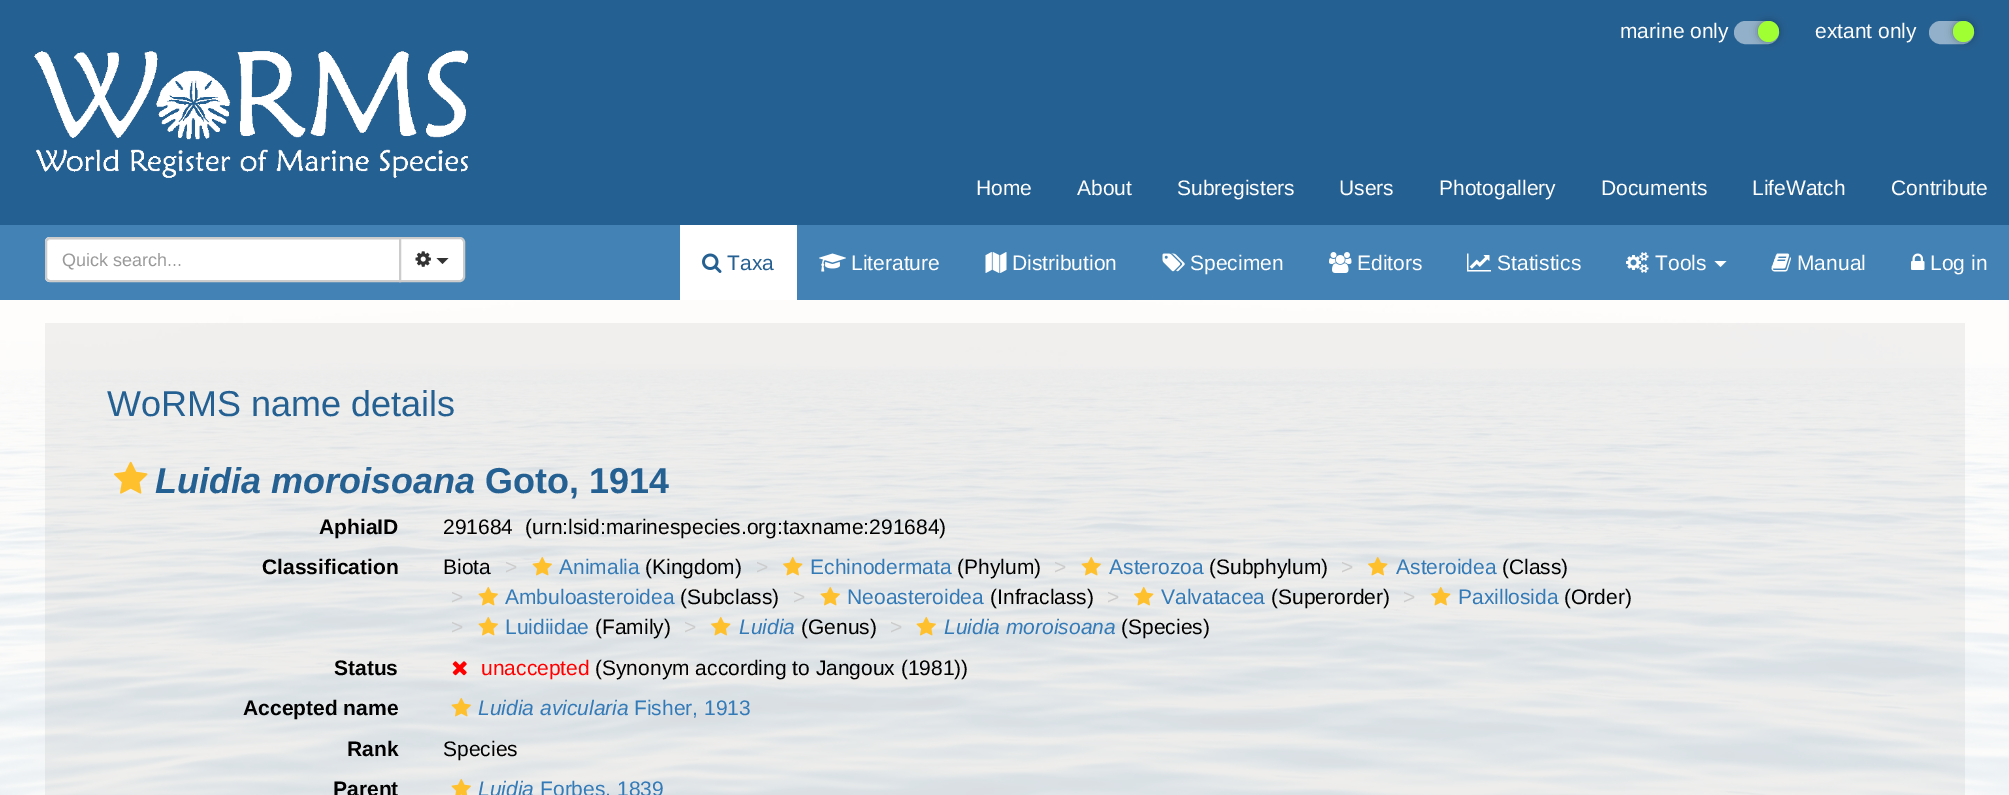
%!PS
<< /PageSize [2009 795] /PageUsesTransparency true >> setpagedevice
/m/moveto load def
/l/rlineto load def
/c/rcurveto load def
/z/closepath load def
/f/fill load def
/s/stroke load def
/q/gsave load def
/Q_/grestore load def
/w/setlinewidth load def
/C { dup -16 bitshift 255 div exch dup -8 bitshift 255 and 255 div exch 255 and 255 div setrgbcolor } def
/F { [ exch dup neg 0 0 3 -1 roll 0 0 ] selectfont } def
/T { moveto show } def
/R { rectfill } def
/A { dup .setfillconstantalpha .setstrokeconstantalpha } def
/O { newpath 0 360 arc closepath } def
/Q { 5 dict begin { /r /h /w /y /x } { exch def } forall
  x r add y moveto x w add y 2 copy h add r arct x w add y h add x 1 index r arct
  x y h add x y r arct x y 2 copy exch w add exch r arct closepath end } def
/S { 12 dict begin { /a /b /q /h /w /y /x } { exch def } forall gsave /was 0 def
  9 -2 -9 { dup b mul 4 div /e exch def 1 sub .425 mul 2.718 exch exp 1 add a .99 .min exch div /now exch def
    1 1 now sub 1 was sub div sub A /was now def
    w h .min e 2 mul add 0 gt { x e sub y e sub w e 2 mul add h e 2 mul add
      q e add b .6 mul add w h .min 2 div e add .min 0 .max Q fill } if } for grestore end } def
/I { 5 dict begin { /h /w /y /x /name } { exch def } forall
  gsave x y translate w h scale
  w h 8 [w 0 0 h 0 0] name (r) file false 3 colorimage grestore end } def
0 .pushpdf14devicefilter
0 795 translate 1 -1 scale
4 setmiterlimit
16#FFFFFF C
0 0 2009 795 R
16#256092 C
0 0 2009 225 R
(1.rgb) 34 50 434 128 I
/LiberationSans-Regular 21 F
16#FFFFFF C
(marine only) 1620 38 T
16#92B0C9 C
1735 22 43 21 10.5 Q q f Q_
2 w
s
16#000000 C
1758 21 21 21 10.5 4 .3 S
16#A0FF33 C
1768.5 31.5 10.5 O f
16#FFFFFF C
(extant only) 1815 38 T
16#92B0C9 C
1930 22 43 21 10.5 Q q f Q_
s
16#000000 C
1953 21 21 21 10.5 4 .3 S
16#A0FF33 C
1963.5 31.5 10.5 O f
16#FFFFFF C
(Home) 976 195 T
(About) 1077 195 T
(Subregisters) 1177 195 T
(Users) 1339 195 T
(Photogallery) 1439 195 T
(Documents) 1601 195 T
(LifeWatch) 1752 195 T
(Contribute) 1891 195 T
16#4382B5 C
0 225 2009 75 R
16#FFFFFF C
50 237 m 351 0 l 0 45 l -351 0 l -3 0 -5 -2 -5 -5 c 0 -35 l 0 -3 2 -5 5 -5 c z f
16#ECECEC C
50 240 m 349 0 l 0 -1 l -349 0 l -2 1 l -1 1 l z f
16#CCCCCC C
50 238 m 350 0 l 0 43 l -350 0 l -2 0 -4 -2 -4 -4 c 0 -35 l 0 -2 2 -4 4 -4 c z s
/LiberationSans-Regular 18 F
16#999999 C
(Quick search...) 62 266 T
16#FFFFFF C
400 238 m 60 0 l 2 0 4 2 4 4 c 0 35 l 0 2 -2 4 -4 4 c -60 0 l z q f Q_
16#CCCCCC C
s
(2.rgb) 415 251 16 16 I
16#333333 C
436.5 258 m 12 0 l -6 6 l z f
16#FFFFFF C
680 225 117 75 R
(3.rgb) 702 253 20 20 I
/LiberationSans-Regular 21 F
16#256092 C
(Taxa) 727 270 T
(4.rgb) 819 253 27 19 I
16#FFFFFF C
(Literature) 851 270 T
(5.rgb) 985 252 22 21 I
(Distribution) 1012 270 T
(6.rgb) 1162 253 23 19 I
(Specimen) 1190 270 T
(7.rgb) 1329 252 23 21 I
(Editors) 1357 270 T
(8.rgb) 1467 253 24 19 I
(Statistics) 1497 270 T
(9.rgb) 1626 252 23 21 I
(Tools) 1655 270 T
1714.5 261 m 12 0 l -6 6 l z f
(10.rgb) 1771 253 20 19 I
(Manual) 1797 270 T
(11.rgb) 1911 253 14 17 I
(Log in) 1930 270 T
(12.rgb) 0 300 2009 495 I
0.9 A
0 300 2009 495 R
0.05 A
16#000000 C
45 323 1920 472 R
/LiberationSans-Regular 36 F
1 A
16#256092 C
(WoRMS name details) 107 416 T
(13.rgb) 114 461 34 33 I
/LiberationSans-BoldItalic 36 F
(Luidia moroisoana) 155 493 T
/LiberationSans-Bold 36 F
(Goto, 1914) 485 493 T
/LiberationSans-Bold 21 F
16#000000 C
(AphiaID) 319 534 T
/LiberationSans-Regular 21 F
(291684) 443 534 T
(\(urn:lsid:marinespecies.org:taxname:291684\)) 525 534 T
/LiberationSans-Bold 21 F
(Classification) 262 574 T
/LiberationSans-Regular 21 F
(Biota) 443 574 T
16#CCCCCC C
(>) 505 574 T
(14.rgb) 532 556 20 20 I
16#337AB7 C
(Animalia) 559 574 T
16#000000 C
(\(Kingdom\)) 645 574 T
16#CCCCCC C
(>) 756 574 T
(15.rgb) 783 556 20 20 I
16#337AB7 C
(Echinodermata) 810 574 T
16#000000 C
(\(Phylum\)) 957 574 T
16#CCCCCC C
(>) 1054 574 T
(16.rgb) 1081 556 20 20 I
16#337AB7 C
(Asterozoa) 1109 574 T
16#000000 C
(\(Subphylum\)) 1209 574 T
16#CCCCCC C
(>) 1341 574 T
(17.rgb) 1368 556 20 20 I
16#337AB7 C
(Asteroidea) 1396 574 T
16#000000 C
(\(Class\)) 1502 574 T
16#CCCCCC C
(>) 451 604 T
(18.rgb) 478 586 20 20 I
16#337AB7 C
(Ambuloasteroidea) 505 604 T
16#000000 C
(\(Subclass\)) 680 604 T
16#CCCCCC C
(>) 793 604 T
(19.rgb) 820 586 20 20 I
16#337AB7 C
(Neoasteroidea) 847 604 T
16#000000 C
(\(Infraclass\)) 990 604 T
16#CCCCCC C
(>) 1107 604 T
(20.rgb) 1134 586 20 20 I
16#337AB7 C
(Valvatacea) 1161 604 T
16#000000 C
(\(Superorder\)) 1271 604 T
16#CCCCCC C
(>) 1403 604 T
(21.rgb) 1431 586 20 20 I
16#337AB7 C
(Paxillosida) 1458 604 T
16#000000 C
(\(Order\)) 1564 604 T
16#CCCCCC C
(>) 451 634 T
(22.rgb) 478 616 20 20 I
16#337AB7 C
(Luidiidae) 505 634 T
16#000000 C
(\(Family\)) 595 634 T
16#CCCCCC C
(>) 684 634 T
(23.rgb) 711 616 20 20 I
/LiberationSans-Italic 21 F
16#337AB7 C
(Luidia) 739 634 T
/LiberationSans-Regular 21 F
16#000000 C
(\(Genus\)) 801 634 T
16#CCCCCC C
(>) 890 634 T
(24.rgb) 916 616 20 20 I
/LiberationSans-Italic 21 F
16#337AB7 C
(Luidia moroisoana) 944 634 T
/LiberationSans-Regular 21 F
16#000000 C
(\(Species\)) 1121 634 T
/LiberationSans-Bold 21 F
(Status) 334 675 T
(25.rgb) 452 661 15 15 I
/LiberationSans-Regular 21 F
16#FF0000 C
(unaccepted) 481 675 T
16#000000 C
(\(Synonym according to Jangoux \(1981\)\)) 595 675 T
/LiberationSans-Bold 21 F
(Accepted name) 243 715 T
(26.rgb) 451 697 20 20 I
/LiberationSans-Italic 21 F
16#337AB7 C
(Luidia avicularia) 478 715 T
/LiberationSans-Regular 21 F
(Fisher, 1913) 634 715 T
/LiberationSans-Bold 21 F
16#000000 C
(Rank) 347 756 T
/LiberationSans-Regular 21 F
(Species) 443 756 T
/LiberationSans-Bold 21 F
(Parent) 333 796 T
(27.rgb) 451 778 20 17 I
/LiberationSans-Italic 21 F
16#337AB7 C
(Luidia) 478 796 T
/LiberationSans-Regular 21 F
(Forbes, 1839) 540 796 T
.poppdf14devicefilter showpage
